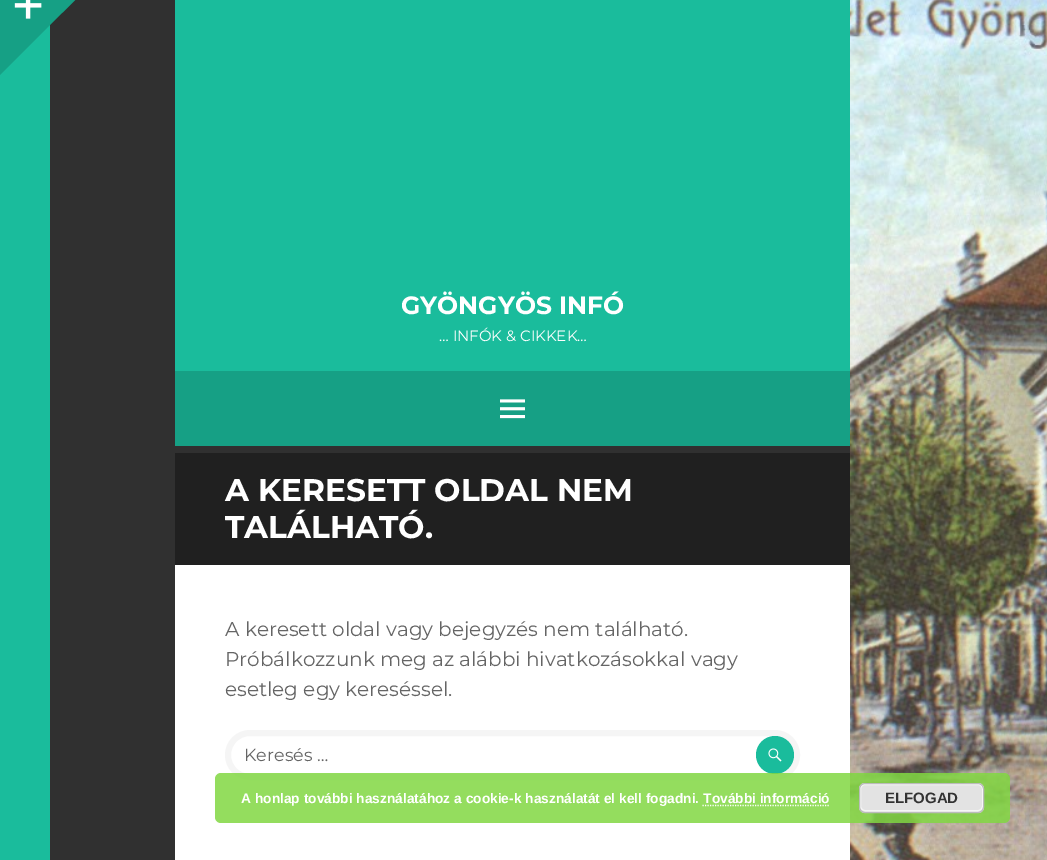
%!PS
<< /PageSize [1047 860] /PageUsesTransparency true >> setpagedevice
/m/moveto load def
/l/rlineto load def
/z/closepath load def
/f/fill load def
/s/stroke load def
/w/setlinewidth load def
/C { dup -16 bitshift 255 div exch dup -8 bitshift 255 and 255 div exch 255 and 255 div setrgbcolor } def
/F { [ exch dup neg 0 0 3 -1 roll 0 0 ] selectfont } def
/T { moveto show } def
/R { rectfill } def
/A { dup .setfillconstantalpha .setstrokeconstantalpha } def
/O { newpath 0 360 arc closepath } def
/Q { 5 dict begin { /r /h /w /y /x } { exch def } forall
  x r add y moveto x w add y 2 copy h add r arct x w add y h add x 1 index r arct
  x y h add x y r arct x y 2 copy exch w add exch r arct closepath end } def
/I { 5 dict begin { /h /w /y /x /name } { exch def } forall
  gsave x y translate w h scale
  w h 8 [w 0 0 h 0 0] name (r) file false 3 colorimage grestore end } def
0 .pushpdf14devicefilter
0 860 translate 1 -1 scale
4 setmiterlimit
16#FFFFFF C
0 0 1047 860 R
(1.rgb) 850 0 197 860 I
16#1ABC9C C
0 25 50 835 R
16#303030 C
50 0 125 860 R
16#16A085 C
0 0 50 25 R
(2.rgb) 14 0 28 19 I
50 -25 m 50 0 l -50 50 l z f
0 25 m 50 0 l -50 50 l z f
16#1ABC9C C
175 0 675 371 R
/Montserrat-Bold 25 F
16#FFFFFF C
(GYÖNGYÖS INFÓ) 401 314 T
/Montserrat-Regular 15 F
(… INFÓK & CIKKEK…) 439 341 T
16#16A085 C
175 371 675 75 R
16#303030 C
175 446 675 7 R
(3.rgb) 500 399 25 20 I
16#202020 C
175 453 675 112 R
/Montserrat-Bold 31.25 F
16#FFFFFF C
(A KERESETT OLDAL NEM) 225 501 T
(TALÁLHATÓ.) 225 538 T
/Montserrat-Regular 20 F
16#656565 C
(A keresett oldal vagy bejegyzés nem található.) 225 636 T
(Próbálkozzunk meg az alábbi hivatkozásokkal vagy) 225 666 T
(esetleg egy kereséssel.) 225 696 T
16#F5F5F5 C
6 w
228 733 569 44 22 Q s
/Montserrat-Regular 17.5 F
16#656565 C
(Keresés …) 244 761 T
16#1ABC9C C
775 755 19 O f
(4.rgb) 768 748 14 14 I
0.85 A
16#81D742 C
215 773 795 50 6 Q f
/LiberationSans-Bold 13.75 F
1 A
16#FFFFFF C
(A honlap további használatához a cookie-k használatát el kell fogadni. További információ) 241 803 T
16#E3E3E3 C
859 783 125 30 6 Q f
16#F6F6F6 C
1 w
860.5 784.5 122 26 4.5 Q s
16#BBBBBB C
859.5 783.5 124 29 5.5 Q s
/LiberationSans-Bold 15 F
16#333333 C
(ELFOGAD) 885 803 T
16#FFFFFF C
1.2 w
[1.25 1.25] 0 setdash
702.5 805.5 m 127.5 0 l s
.poppdf14devicefilter showpage
